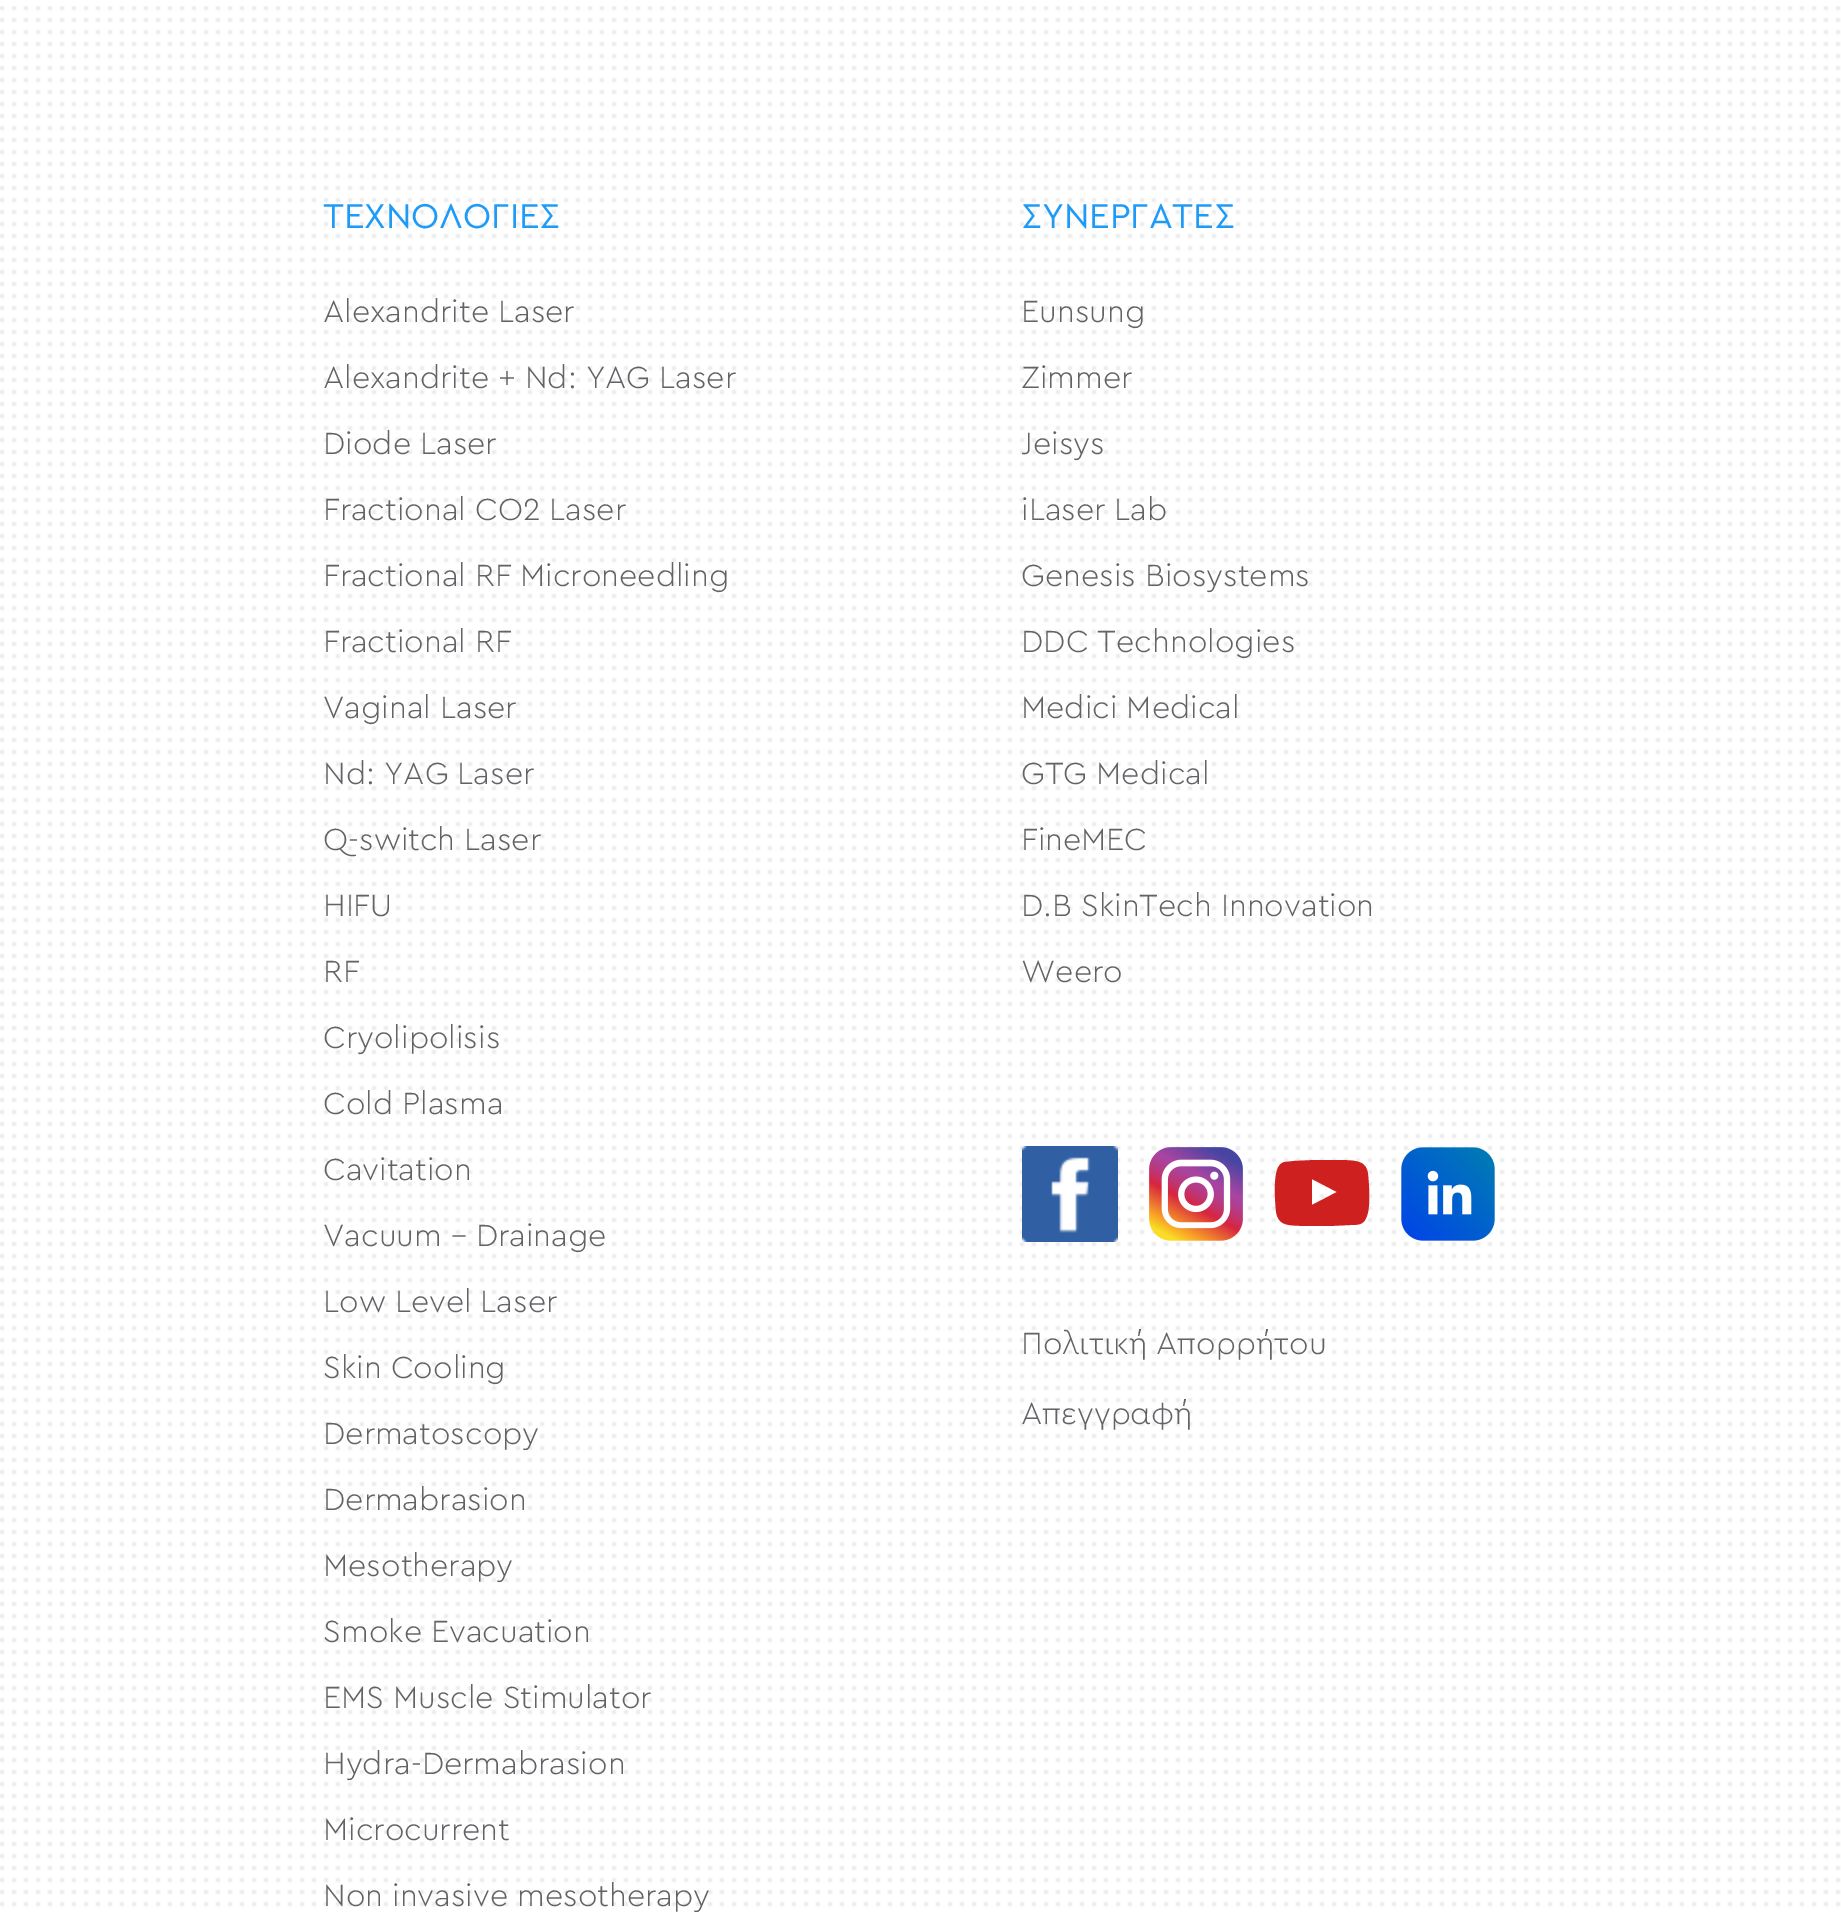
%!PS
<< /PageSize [1841 1912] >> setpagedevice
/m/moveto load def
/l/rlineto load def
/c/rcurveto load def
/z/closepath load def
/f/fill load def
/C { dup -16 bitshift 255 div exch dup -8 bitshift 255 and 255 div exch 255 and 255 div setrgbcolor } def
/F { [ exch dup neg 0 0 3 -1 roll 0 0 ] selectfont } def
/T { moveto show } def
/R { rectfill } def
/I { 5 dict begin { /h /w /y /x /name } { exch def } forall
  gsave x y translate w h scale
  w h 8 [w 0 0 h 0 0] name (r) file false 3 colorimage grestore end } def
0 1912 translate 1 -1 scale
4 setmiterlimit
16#FFFFFF C
0 0 1841 1912 R
(1.rgb) 0 6 1841 1901 I
/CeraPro-Regular 36 F
16#1D9BF7 C
(ΤΕΧΝΟΛΟΓΙΕΣ) 323 228 T
/CeraPro-Light 32 F
16#626366 C
(Alexandrite Laser) 323 322 T
(Alexandrite + Nd: YAG Laser) 323 388 T
(Diode Laser) 323 454 T
(Fractional CO2 Laser) 323 520 T
(Fractional RF Microneedling) 323 586 T
(Fractional RF) 323 652 T
(Vaginal Laser) 323 718 T
(Nd: YAG Laser) 323 784 T
(Q-switch Laser) 323 850 T
(HIFU) 323 916 T
(RF) 323 982 T
(Cryolipolisis) 323 1048 T
(Cold Plasma) 323 1114 T
(Cavitation) 323 1180 T
(Vacuum – Drainage) 323 1246 T
(Low Level Laser) 323 1312 T
(Skin Cooling) 323 1378 T
(Dermatoscopy) 323 1444 T
(Dermabrasion) 323 1510 T
(Mesotherapy) 323 1576 T
(Smoke Evacuation) 323 1642 T
(EMS Muscle Stimulator) 323 1708 T
(Hydra-Dermabrasion) 323 1774 T
(Microcurrent) 323 1840 T
(Non invasive mesotherapy) 323 1906 T
/CeraPro-Regular 36 F
16#1D9BF7 C
(ΣΥΝΕΡΓΑΤΕΣ) 1021 228 T
/CeraPro-Light 32 F
16#626366 C
(Eunsung) 1021 322 T
(Zimmer) 1021 388 T
(Jeisys) 1021 454 T
(iLaser Lab) 1021 520 T
(Genesis Biosystems) 1021 586 T
(DDC Technologies) 1021 652 T
(Medici Medical) 1021 718 T
(GTG Medical) 1021 784 T
(FineMEC) 1021 850 T
(D.B SkinTech Innovation) 1021 916 T
(Weero) 1021 982 T
(2.rgb) 1022 1146 96 96 I
(3.rgb) 1149 1147 94 94 I
16#CD201F C
1368 1174 m -2 -14 -13 -13 -24 -14 c -29 0 l -21 1 l -9 1 l -2 0 -5 2 -6 4 c -6 8 -4 35 -3 45 c 2 16 14 14 28 15 c 25 0 l 21 -1 l 3 0 7 0 10 -1 c 3 -1 5 -3 6 -6 c 5 -9 3 -33 2 -44 c z 1312 1205 m 0 -26 l 25 13 l z f
(4.rgb) 1401 1147 94 94 I
16#626366 C
(Πολιτική Απορρήτου) 1021 1354 T
(Απεγγραφή) 1021 1424 T
showpage
